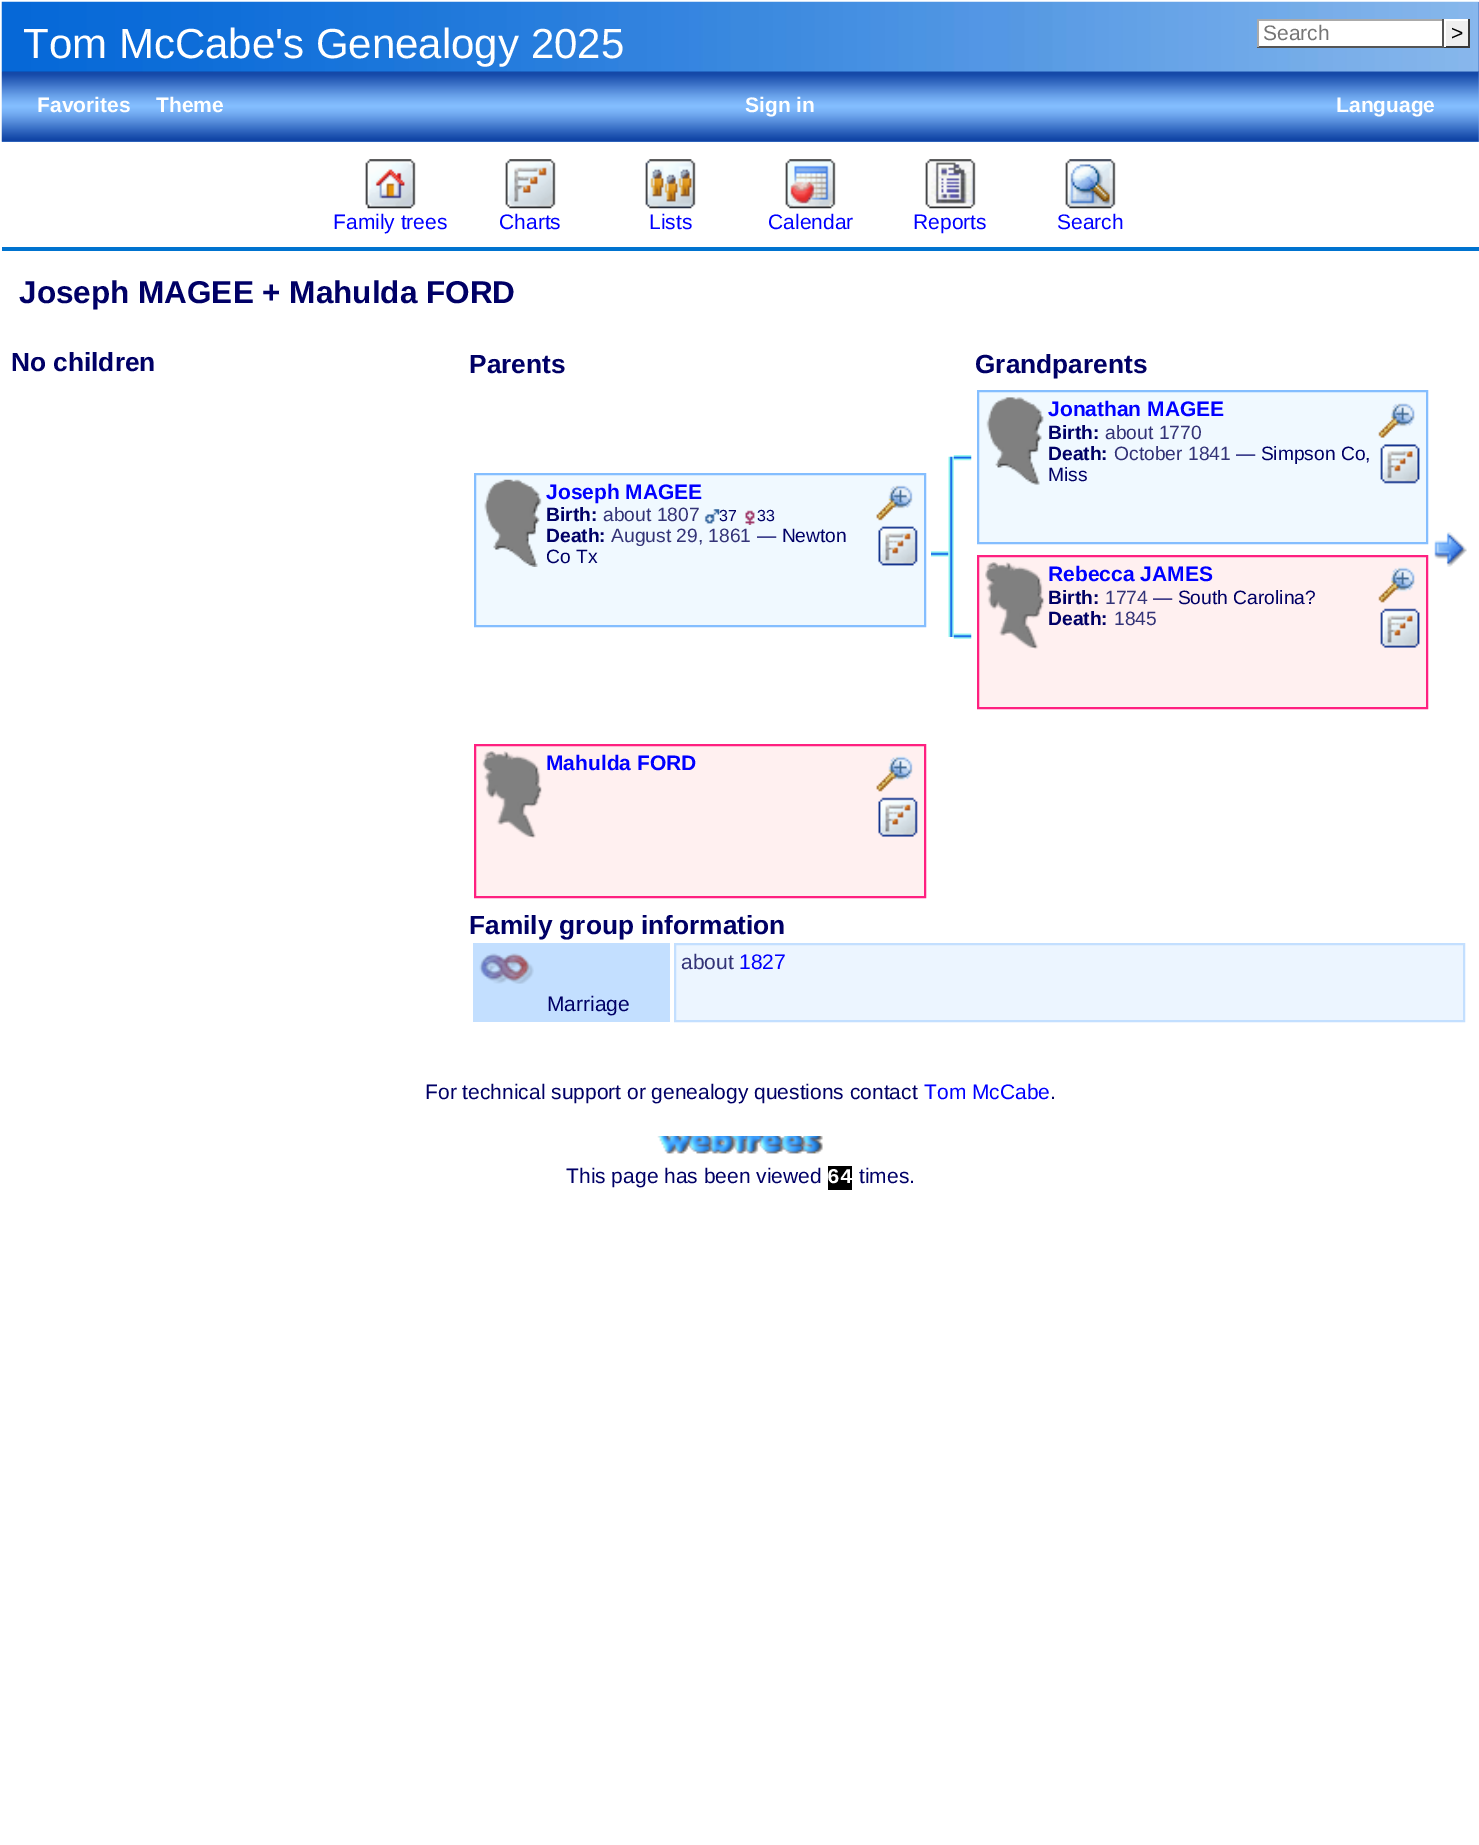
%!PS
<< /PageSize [1479 1845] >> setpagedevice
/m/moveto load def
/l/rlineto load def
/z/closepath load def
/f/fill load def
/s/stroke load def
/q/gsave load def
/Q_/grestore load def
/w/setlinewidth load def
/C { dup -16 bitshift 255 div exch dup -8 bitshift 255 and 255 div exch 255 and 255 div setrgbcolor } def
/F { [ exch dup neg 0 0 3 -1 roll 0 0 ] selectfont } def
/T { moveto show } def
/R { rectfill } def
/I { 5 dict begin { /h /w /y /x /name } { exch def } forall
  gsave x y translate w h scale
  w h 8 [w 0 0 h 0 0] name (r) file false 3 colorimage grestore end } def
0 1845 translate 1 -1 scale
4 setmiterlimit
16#FFFFFF C
0 0 1479 1845 R
16#003399 C
2 2 1477 70 R
(1.rgb) 1 1 1478 71 I
/LiberationSans-Regular 42 F
16#FFFFFF C
(Tom McCabe's Genealogy 2025) 23 58 T
1259 21 183 25 R
16#AAAAAA C
1257 19 187 2 R
16#555555 C
1442 19 2 28 R
1257 46 187 2 R
16#AAAAAA C
1257 19 2 28 R
/LiberationSans-Regular 21 F
16#757575 C
(Search) 1263 40 T
16#EFEFEF C
1446 21 22 25 R
16#FFFFFF C
1444 19 26 2 R
16#393939 C
1468 19 2 28 R
1444 46 26 2 R
16#FFFFFF C
1444 19 2 28 R
16#000000 C
(>) 1451 40 T
16#84BEFF C
2 72 1477 70 R
(2.rgb) 1 71 1478 71 I
/LiberationSans-Bold 21 F
16#FFFFFF C
(Favorites) 37 112 T
(Theme) 156 112 T
(Sign in) 745 112 T
(Language) 1336 112 T
16#0073CF C
2 247 1477 4 R
(3.rgb) 365 159 51 50 I
/LiberationSans-Regular 21 F
16#0000FF C
(Family trees) 333 229 T
(4.rgb) 505 159 51 50 I
(Charts) 499 229 T
(5.rgb) 645 159 51 50 I
(Lists) 649 229 T
(6.rgb) 785 159 51 50 I
(Calendar) 768 229 T
(7.rgb) 925 159 51 50 I
(Reports) 913 229 T
(8.rgb) 1065 159 51 50 I
(Search) 1057 229 T
/LiberationSans-Bold 31.5 F
16#000066 C
(Joseph MAGEE + Mahulda FORD) 19 303 T
/LiberationSans-Bold 26.25 F
(No children) 11 371 T
(Parents) 469 373 T
(Grandparents) 975 373 T
16#F0F9FF C
475 474 m 450 0 l 0 152 l -450 0 l z q f Q_
16#84BEFF C
2 w
s
(9.rgb) 484 479 58 88 I
/LiberationSans-Bold 21 F
16#0000FF C
(Joseph MAGEE) 546 499 T
/LiberationSans-Bold 19.25 F
16#000066 C
(Birth:) 546 521 T
/LiberationSans-Regular 19.25 F
16#333377 C
(about 1807) 603 521 T
(10.rgb) 704 509 16 15 I
/LiberationSans-Regular 16 F
16#000066 C
(37) 719 521 T
(11.rgb) 745 510 10 15 I
(33) 757 521 T
/LiberationSans-Bold 19.25 F
(Death:) 546 542 T
/LiberationSans-Regular 19.25 F
16#333377 C
(August 29, 1861) 611 542 T
16#000066 C
(— Newton) 757 542 T
(Co Tx) 546 563 T
(12.rgb) 876 485 37 36 I
(13.rgb) 878 526 40 40 I
(14.rgb) 931 551 18 6 I
(15.rgb) 948 456 6 181 I
(16.rgb) 953 455 19 6 I
16#F0F9FF C
978 391 m 449 0 l 0 152 l -449 0 l z q f Q_
16#84BEFF C
s
(17.rgb) 986 397 58 88 I
/LiberationSans-Bold 21 F
16#0000FF C
(Jonathan MAGEE) 1048 416 T
/LiberationSans-Bold 19.25 F
16#000066 C
(Birth:) 1048 439 T
/LiberationSans-Regular 19.25 F
16#333377 C
(about 1770) 1105 439 T
/LiberationSans-Bold 19.25 F
16#000066 C
(Death:) 1048 460 T
/LiberationSans-Regular 19.25 F
16#333377 C
(October 1841) 1114 460 T
16#000066 C
(— Simpson Co,) 1236 460 T
(Miss) 1048 481 T
(18.rgb) 1378 403 37 35 I
(19.rgb) 1380 444 40 40 I
(20.rgb) 1434 532 33 35 I
16#FFF0F0 C
978 556 m 449 0 l 0 152 l -449 0 l z q f Q_
16#FF2080 C
s
(21.rgb) 985 562 60 87 I
/LiberationSans-Bold 21 F
16#0000FF C
(Rebecca JAMES) 1048 581 T
/LiberationSans-Bold 19.25 F
16#000066 C
(Birth:) 1048 604 T
/LiberationSans-Regular 19.25 F
16#333377 C
(1774) 1105 604 T
16#000066 C
(— South Carolina?) 1153 604 T
/LiberationSans-Bold 19.25 F
(Death:) 1048 625 T
/LiberationSans-Regular 19.25 F
16#333377 C
(1845) 1114 625 T
(22.rgb) 1378 566 37 37 I
(23.rgb) 1380 608 40 40 I
(24.rgb) 953 633 19 6 I
16#FFF0F0 C
475 745 m 450 0 l 0 152 l -450 0 l z q f Q_
16#FF2080 C
s
(25.rgb) 482 751 60 87 I
/LiberationSans-Bold 21 F
16#0000FF C
(Mahulda FORD) 546 770 T
(26.rgb) 876 755 37 37 I
(27.rgb) 878 797 40 40 I
/LiberationSans-Bold 26.25 F
16#000066 C
(Family group information) 469 934 T
16#ECF5FF C
675 944 m 789 0 l 0 77 l -789 0 l z q f Q_
16#C3DFFF C
s
/LiberationSans-Regular 21 F
16#333377 C
(about) 681 969 T
16#0000FF C
(1827) 739 969 T
16#C3DFFF C
473 943 197 79 R
(28.rgb) 479 953 55 31 I
16#000066 C
(Marriage) 547 1011 T
(For technical support or genealogy questions contact) 425 1099 T
16#0000FF C
(Tom McCabe) 924 1099 T
16#000066 C
(.) 1050 1099 T
(29.rgb) 657 1136 166 18 I
(This page has been viewed) 566 1183 T
16#000000 C
828 1166 24 24 R
/LiberationMono-Bold 21 F
16#FFFFFF C
(64) 827 1183 T
/LiberationSans-Regular 21 F
16#000066 C
(times.) 859 1183 T
showpage
